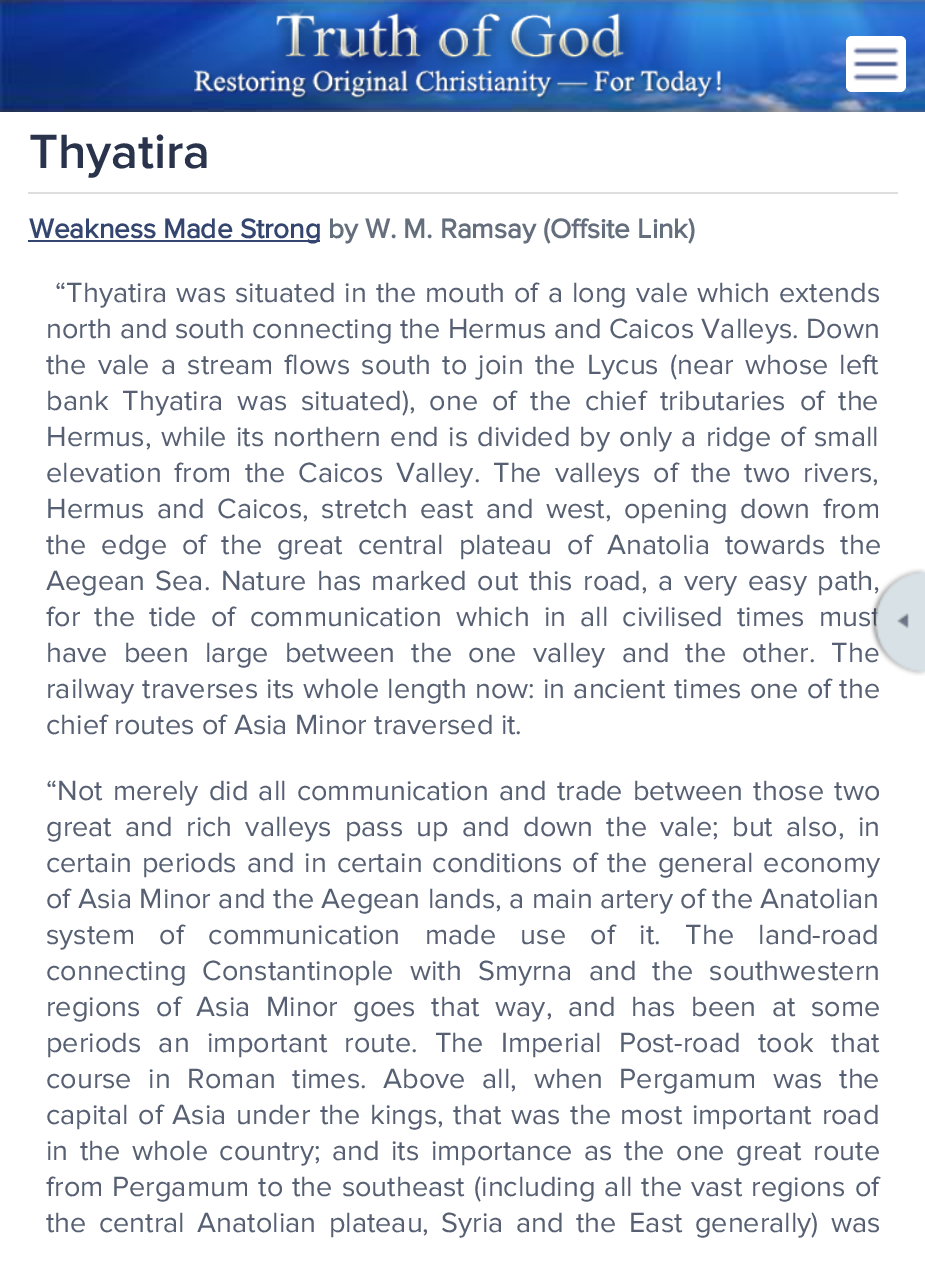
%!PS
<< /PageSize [925 1262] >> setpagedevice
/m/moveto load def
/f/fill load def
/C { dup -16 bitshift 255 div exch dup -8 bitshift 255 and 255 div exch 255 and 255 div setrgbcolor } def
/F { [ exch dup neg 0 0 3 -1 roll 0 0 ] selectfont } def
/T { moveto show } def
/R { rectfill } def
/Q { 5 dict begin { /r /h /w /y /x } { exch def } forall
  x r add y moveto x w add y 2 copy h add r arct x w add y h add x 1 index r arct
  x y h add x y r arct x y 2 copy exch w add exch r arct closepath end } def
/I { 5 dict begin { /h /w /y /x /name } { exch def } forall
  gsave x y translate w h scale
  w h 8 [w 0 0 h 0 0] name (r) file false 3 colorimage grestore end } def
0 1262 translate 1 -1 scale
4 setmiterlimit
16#FFFFFF C
0 0 925 1262 R
(1.rgb) 0 0 925 112 I
(2.rgb) 194 6 529 94 I
846 36 60 56 6 Q f
(3.rgb) 853 47 46 34 I
16#DEDEDE C
28 192 870 2 R
/ProximaNova-SemiBold 50 F
16#29334B C
(Thyatira) 29 168 T
16#344570 C
28 240 292 2 R
/ProximaNova-Bold 28 F
(Weakness Made Strong) 29 238 T
16#646E7C C
(by W. M. Ramsay \(Offsite Link\)) 328 238 T
/ProximaNova-Regular 28.8 F
16#576072 C
55 302 m 1.5 0 32 (“Thyatira was situated in the mouth of a long vale which extends) widthshow
(north and south connecting the Hermus and Caicos Valleys. Down) 46 338 T
46 374 m 3.75 0 32 (the vale a stream flows south to join the Lycus \(near whose left) widthshow
46 410 m 6.5 0 32 (bank Thyatira was situated\), one of the chief tributaries of the) widthshow
46 446 m 1.8 0 32 (Hermus, while its northern end is divided by only a ridge of small) widthshow
46 482 m 5.5 0 32 (elevation from the Caicos Valley. The valleys of the two rivers,) widthshow
46 518 m 5 0 32 (Hermus and Caicos, stretch east and west, opening down from) widthshow
46 554 m 7.5 0 32 (the edge of the great central plateau of Anatolia towards the) widthshow
46 590 m 3 0 32 (Aegean Sea. Nature has marked out this road, a very easy path,) widthshow
46 626 m 6.75 0 32 (for the tide of communication which in all civilised times must) widthshow
46 662 m 8.75 0 32 (have been large between the one valley and the other. The) widthshow
46 698 m .75 0 32 (railway traverses its whole length now: in ancient times one of the) widthshow
(chief routes of Asia Minor traversed it.) 46 734 T
46 800 m 2.75 0 32 (“Not merely did all communication and trade between those two) widthshow
46 836 m 5.9 0 32 (great and rich valleys pass up and down the vale; but also, in) widthshow
46 872 m 2.5 0 32 (certain periods and in certain conditions of the general economy) widthshow
(of Asia Minor and the Aegean lands, a main artery of the Anatolian) 46 908 T
46 944 m 17 0 32 (system of communication made use of it. The land-road) widthshow
46 980 m 8.75 0 32 (connecting Constantinople with Smyrna and the southwestern) widthshow
46 1016 m 8.25 0 32 (regions of Asia Minor goes that way, and has been at some) widthshow
46 1052 m 10 0 32 (periods an important route. The Imperial Post-road took that) widthshow
46 1088 m 9.25 0 32 (course in Roman times. Above all, when Pergamum was the) widthshow
46 1124 m 2.25 0 32 (capital of Asia under the kings, that was the most important road) widthshow
46 1160 m 4 0 32 (in the whole country; and its importance as the one great route) widthshow
46 1196 m 1.6 0 32 (from Pergamum to the southeast \(including all the vast regions of) widthshow
46 1232 m 5 0 32 (the central Anatolian plateau, Syria and the East generally\) was) widthshow
(4.rgb) 870 568 55 108 I
showpage
